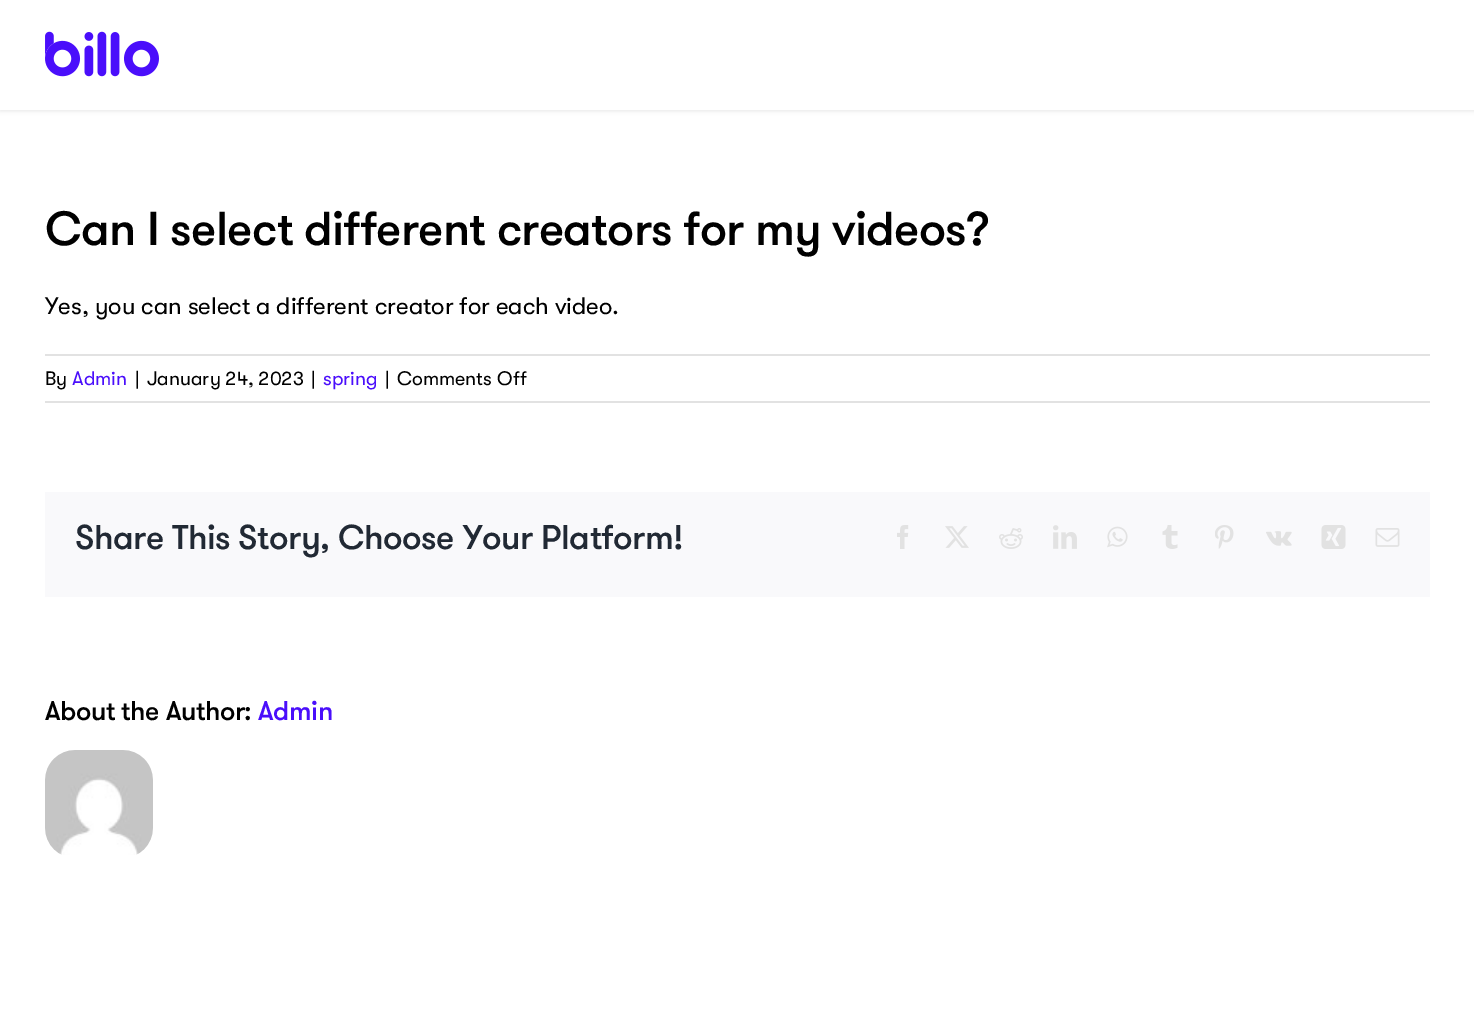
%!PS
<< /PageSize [1474 1030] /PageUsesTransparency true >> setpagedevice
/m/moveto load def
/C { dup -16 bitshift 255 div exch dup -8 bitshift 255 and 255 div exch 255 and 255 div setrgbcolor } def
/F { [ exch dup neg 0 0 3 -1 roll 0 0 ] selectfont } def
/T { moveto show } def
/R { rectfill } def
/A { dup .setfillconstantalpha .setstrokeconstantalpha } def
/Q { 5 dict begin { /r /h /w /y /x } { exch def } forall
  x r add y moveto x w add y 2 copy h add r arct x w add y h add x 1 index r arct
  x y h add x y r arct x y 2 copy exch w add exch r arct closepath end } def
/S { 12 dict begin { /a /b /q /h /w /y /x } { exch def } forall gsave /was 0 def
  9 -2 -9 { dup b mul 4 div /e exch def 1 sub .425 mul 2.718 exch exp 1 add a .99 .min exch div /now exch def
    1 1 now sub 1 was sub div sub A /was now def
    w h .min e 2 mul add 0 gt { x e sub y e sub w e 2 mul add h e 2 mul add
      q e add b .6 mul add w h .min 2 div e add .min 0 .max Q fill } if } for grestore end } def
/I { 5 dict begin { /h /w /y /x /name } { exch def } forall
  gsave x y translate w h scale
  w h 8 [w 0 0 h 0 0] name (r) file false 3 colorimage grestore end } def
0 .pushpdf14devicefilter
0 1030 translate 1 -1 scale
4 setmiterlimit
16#FFFFFF C
0 0 1474 1030 R
16#151516 C
0 0 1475 111 0 2 .1 S
16#FFFFFF C
0 0 1474 110 R
(1.rgb) 45 31 114 46 I
/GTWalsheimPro-Medium 47.7 F
16#000000 C
45 245 m -.7 0 (Can I select different creators for my videos?) ashow
/GTWalsheimPro-Regular 24 F
(Yes, you can select a different creator for each video.) 45 314 T
16#E2E2E2 C
45 354 1385 2 R
45 401 1385 2 R
/GTWalsheimPro-Regular 19.5 F
16#000000 C
(By) 45 385 T
16#4A0EFB C
(Admin) 72 385 T
16#000000 C
(|) 135 385 T
(January 24, 2023) 147 385 T
(|) 311 385 T
16#4A0EFB C
(spring) 323 385 T
16#000000 C
(|) 385 385 T
(Comments Off) 397 385 T
16#F9F9FB C
45 492 1385 105 R
/GTWalsheimPro-Medium 34.4 F
16#212934 C
75 549 m -.5 0 (Share This Story, Choose Your Platform!) ashow
(2.rgb) 897 525 12 24 I
(3.rgb) 945 526 24 22 I
(4.rgb) 999 528 24 21 I
(5.rgb) 1053 525 24 24 I
(6.rgb) 1107 526 21 22 I
(7.rgb) 1162 525 16 24 I
(8.rgb) 1215 525 19 24 I
(9.rgb) 1266 531 26 15 I
(10.rgb) 1321 525 25 24 I
(11.rgb) 1375 528 25 19 I
/GTWalsheimPro-Medium 27 F
16#000000 C
45 720 m -.4 0 (About the Author:) ashow
16#4A0EFB C
258 720 m -.4 0 (Admin) ashow
(12.rgb) 45 750 108 105 I
.poppdf14devicefilter showpage
